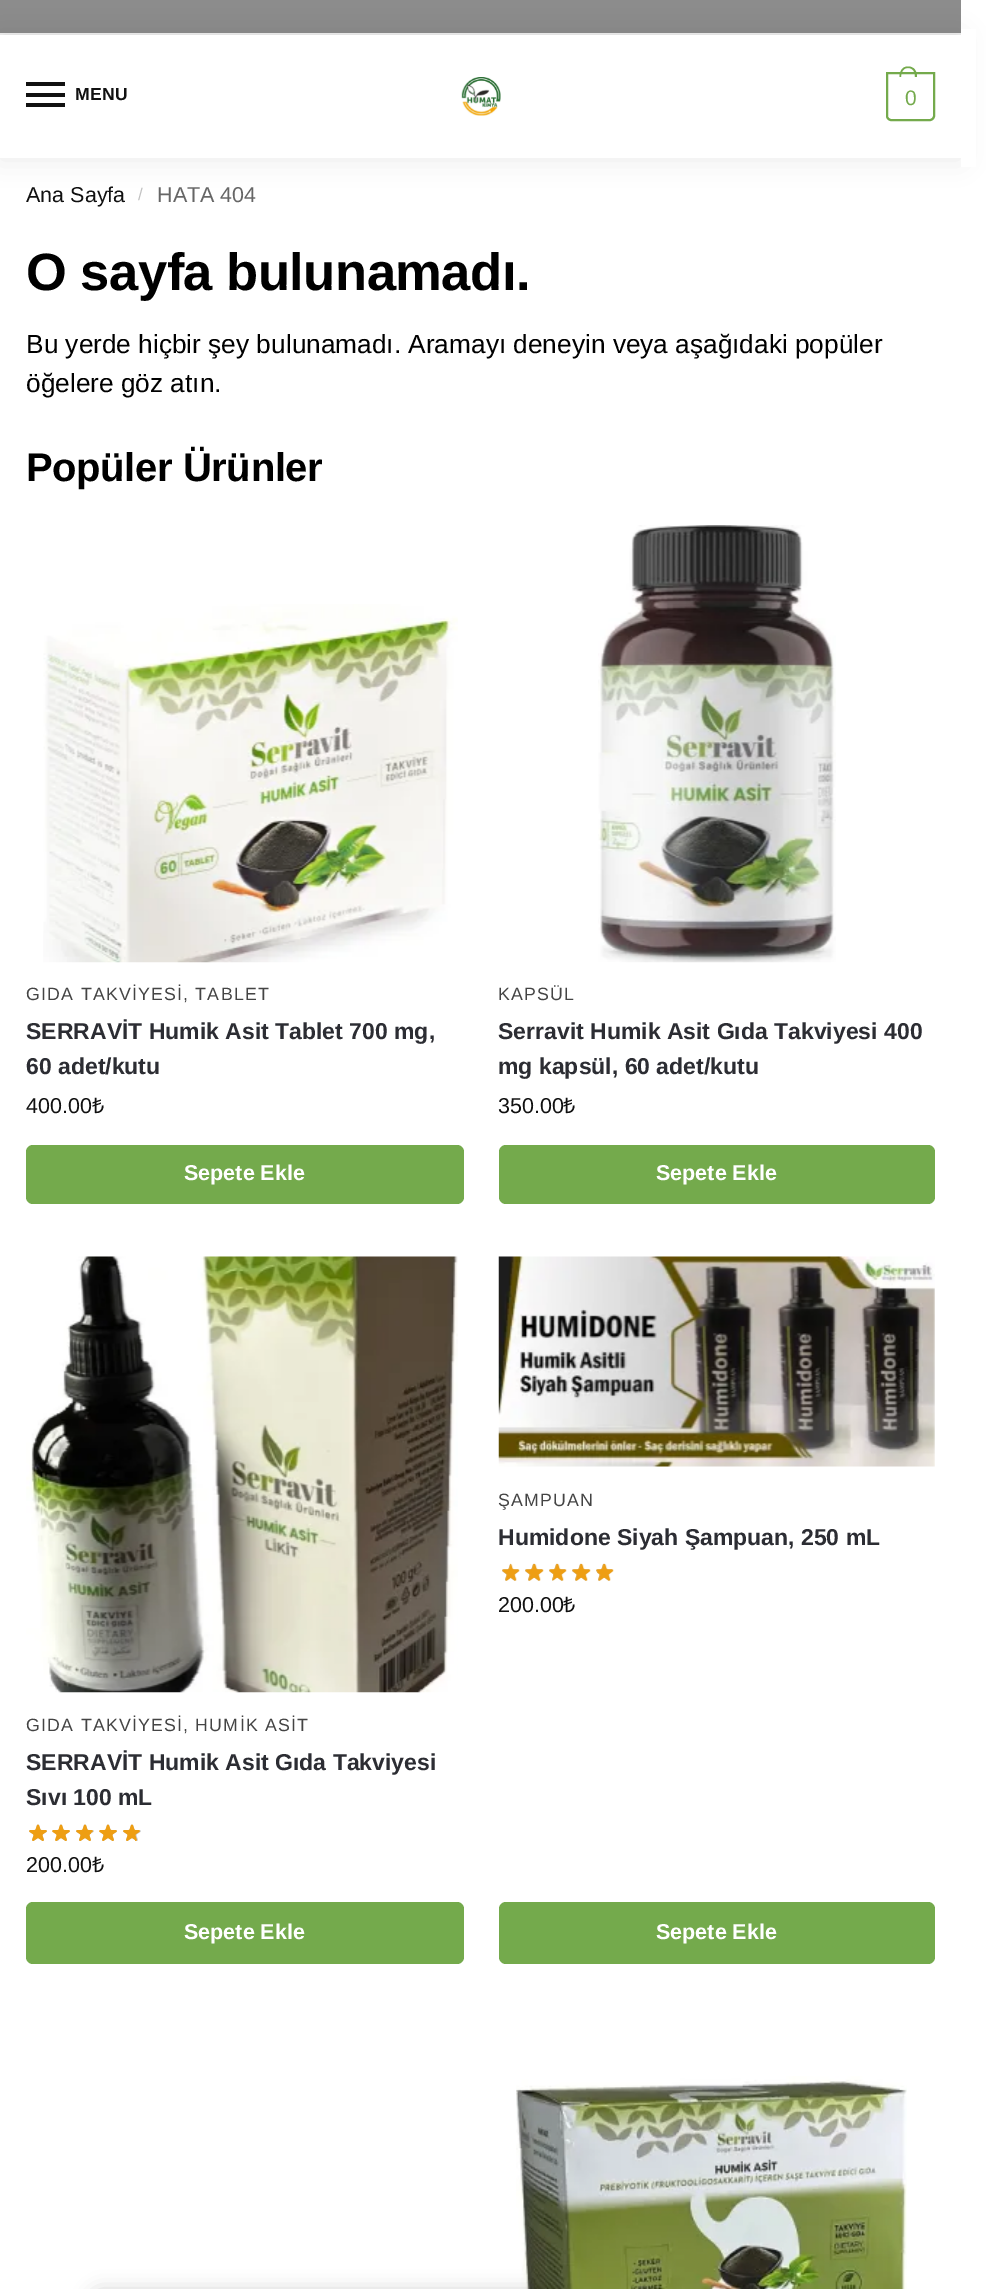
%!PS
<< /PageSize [986 2289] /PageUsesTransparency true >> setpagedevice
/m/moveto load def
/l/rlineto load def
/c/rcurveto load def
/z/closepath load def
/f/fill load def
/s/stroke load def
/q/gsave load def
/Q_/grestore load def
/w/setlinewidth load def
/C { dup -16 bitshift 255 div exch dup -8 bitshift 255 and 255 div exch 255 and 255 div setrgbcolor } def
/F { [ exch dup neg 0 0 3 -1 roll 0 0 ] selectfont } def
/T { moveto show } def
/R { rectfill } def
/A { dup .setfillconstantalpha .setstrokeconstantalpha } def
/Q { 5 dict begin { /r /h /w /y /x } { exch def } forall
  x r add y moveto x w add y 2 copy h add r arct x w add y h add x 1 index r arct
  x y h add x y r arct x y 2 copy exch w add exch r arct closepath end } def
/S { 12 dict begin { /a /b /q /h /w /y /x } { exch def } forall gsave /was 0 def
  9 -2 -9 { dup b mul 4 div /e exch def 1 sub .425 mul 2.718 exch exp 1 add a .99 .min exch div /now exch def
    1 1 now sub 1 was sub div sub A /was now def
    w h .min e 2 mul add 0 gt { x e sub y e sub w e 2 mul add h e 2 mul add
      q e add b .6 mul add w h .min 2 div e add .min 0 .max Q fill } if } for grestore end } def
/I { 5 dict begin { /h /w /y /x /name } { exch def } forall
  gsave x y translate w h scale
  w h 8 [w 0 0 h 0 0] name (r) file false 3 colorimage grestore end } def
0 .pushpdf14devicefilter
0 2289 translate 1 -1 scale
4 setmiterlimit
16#FFFFFF C
0 0 986 2289 R
16#8C8C8C C
0 0 961 33 R
16#EEEEEE C
0 33 961 2 R
q
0 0 m 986 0 l 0 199 l -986 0 l z 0 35 m 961 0 l 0 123 l -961 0 l z eoclip newpath
16#000000 C
0 37 961 122 0 13 .08 S
Q_
16#111111 C
26 82 39 4 R
26 93 39 4 R
/LiberationSans-Bold 17.5 F
75 100 m .5 0 (MENU) ashow
26 103 39 4 R
(1.rgb) 461 77 40 39 I
16#74AA4C C
2 w
887 73 m 47 0 l 0 43 l 0 2 -2 4 -4 4 c -39 0 l -2 0 -4 -2 -4 -4 c z s
908 66.5 m 6.5 0 9 5 9 10.5 c -17.5 0 l 0 -5.5 2.5 -10.5 8.5 -10.5 c z 908 68 m 5.5 0 7 4.5 7 9 c -14 0 l 0 -4.5 2 -9 7 -9 c z eofill
/LiberationSans-Regular 21 F
905 105 m -1 0 (0) ashow
16#FFFFFF C
961 29 15 138 R
/LiberationSans-Regular 21.5 F
16#111111 C
(Ana Sayfa) 26 202 T
/LiberationSans-Regular 17 F
16#C2C2C2 C
(/) 138 200 T
/LiberationSans-Regular 21.5 F
16#666666 C
(HATA 404) 157 202 T
/LiberationSans-Bold 52.5 F
16#000000 C
26 290 m -.5 0 (O sayfa bulunamadı.) ashow
/LiberationSans-Regular 26.25 F
(Bu yerde hiçbir şey bulunamadı. Aramayı deneyin veya aşağıdaki popüler) 26 353 T
(öğelere göz atın.) 26 392 T
/LiberationSans-Bold 40 F
26 481 m -.4 0 (Popüler Ürünler) ashow
(2.rgb) 43 604 415 359 I
/LiberationSans-Regular 17.75 F
16#444444 C
26 1000 m 1.25 0 (GIDA TAKVİYESİ) ashow
183 1000 m 1.25 0 (, TABLET) ashow
/LiberationSans-Bold 23 F
16#2C2D33 C
(SERRAVİT Humik Asit Tablet 700 mg,) 26 1039 T
(60 adet/kutu) 26 1074 T
/LiberationSans-Regular 21.5 F
16#111111 C
(400.00) 26 1113 T
/NotoSans-Regular 21.5 F
(₺) 92 1113 T
16#74AA4C C
26 1145 438 59 7 Q f
/LiberationSans-Bold 21.5 F
16#FFFFFF C
(Sepete Ekle) 184 1180 T
(3.rgb) 598 525 238 438 I
/LiberationSans-Regular 17.75 F
16#444444 C
498 1000 m 1.25 0 (KAPSÜL) ashow
/LiberationSans-Bold 23 F
16#2C2D33 C
(Serravit Humik Asit Gıda Takviyesi 400) 498 1039 T
(mg kapsül, 60 adet/kutu) 498 1074 T
/LiberationSans-Regular 21.5 F
16#111111 C
(350.00) 498 1113 T
/NotoSans-Regular 21.5 F
(₺) 563 1113 T
16#74AA4C C
499 1145 436 59 7 Q f
/LiberationSans-Bold 21.5 F
16#FFFFFF C
(Sepete Ekle) 656 1180 T
(4.rgb) 26 1256 432 437 I
/LiberationSans-Regular 17.75 F
16#444444 C
26 1731 m 1.25 0 (GIDA TAKVİYESİ) ashow
183 1731 m 1.25 0 (, HUMİK ASİT) ashow
/LiberationSans-Bold 23 F
16#2C2D33 C
(SERRAVİT Humik Asit Gıda Takviyesi) 26 1770 T
(Sıvı 100 mL) 26 1805 T
(5.rgb) 29 1824 112 17 I
(6.rgb) 29 1824 111 17 I
/LiberationSans-Regular 21.5 F
16#111111 C
(200.00) 26 1872 T
/NotoSans-Regular 21.5 F
(₺) 92 1872 T
16#74AA4C C
26 1902 438 62 7 Q f
/LiberationSans-Bold 21.5 F
16#FFFFFF C
(Sepete Ekle) 184 1939 T
(7.rgb) 498 1256 437 211 I
/LiberationSans-Regular 17.75 F
16#444444 C
498 1506 m 1.25 0 (ŞAMPUAN) ashow
/LiberationSans-Bold 23 F
16#2C2D33 C
(Humidone Siyah Şampuan, 250 mL) 498 1545 T
(8.rgb) 502 1563 111 18 I
(9.rgb) 502 1563 112 18 I
/LiberationSans-Regular 21.5 F
16#111111 C
(200.00) 498 1612 T
/NotoSans-Regular 21.5 F
(₺) 563 1612 T
16#74AA4C C
499 1902 436 62 7 Q f
/LiberationSans-Bold 21.5 F
16#FFFFFF C
(Sepete Ekle) 656 1939 T
(10.rgb) 516 2076 391 213 I
16#000000 C
88 2289 476 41 14 9 .15 S
.poppdf14devicefilter showpage
